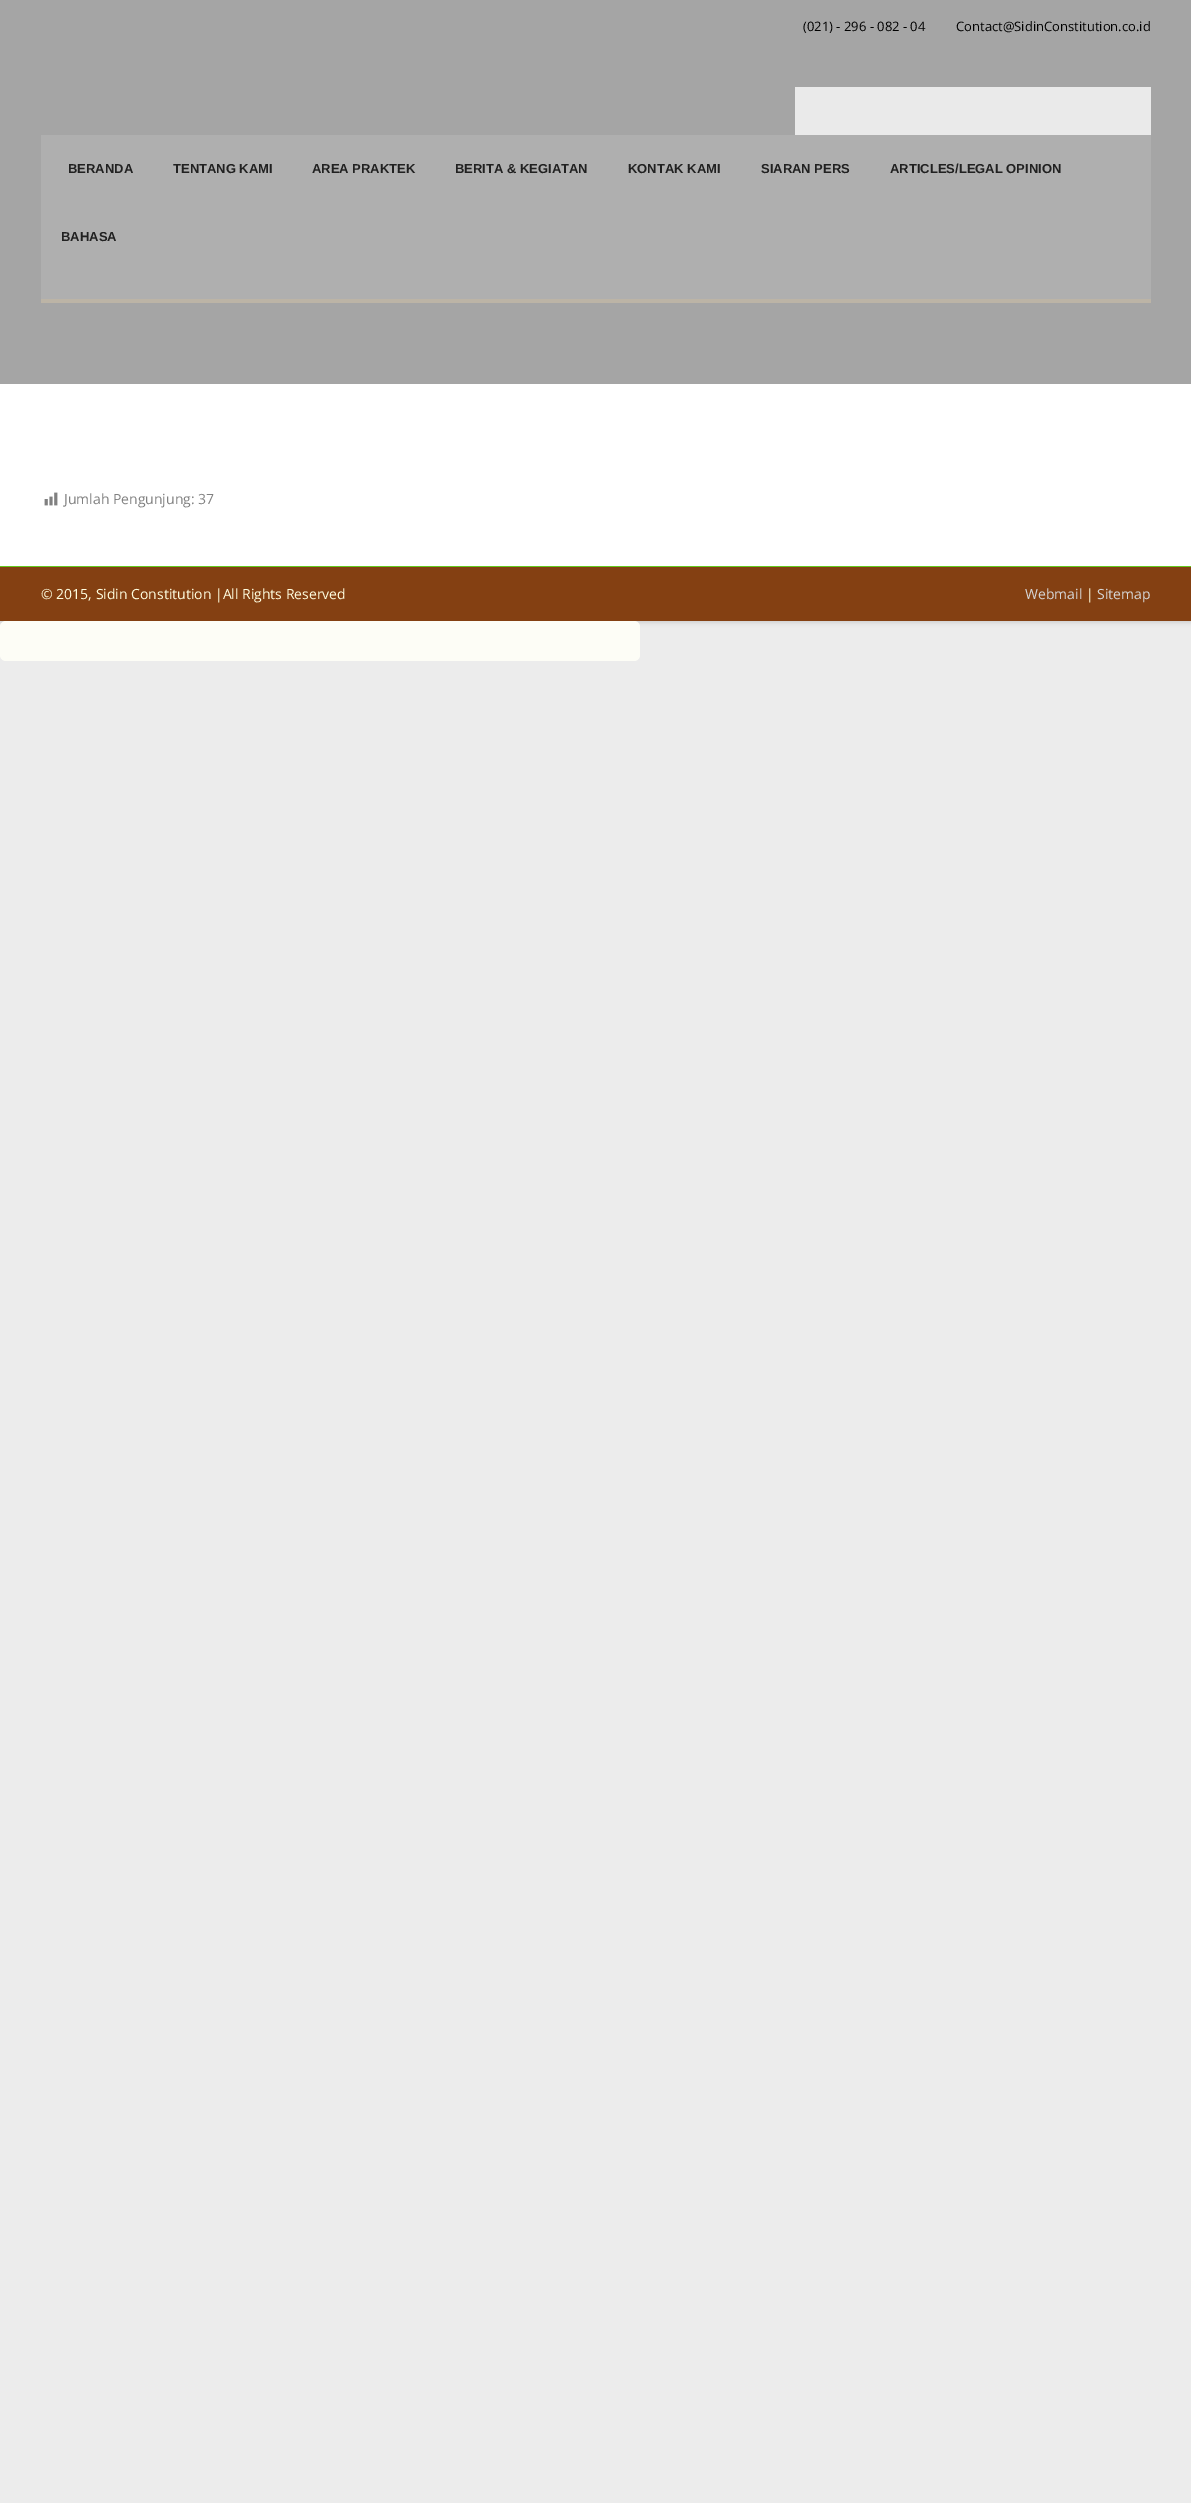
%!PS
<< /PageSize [1191 2503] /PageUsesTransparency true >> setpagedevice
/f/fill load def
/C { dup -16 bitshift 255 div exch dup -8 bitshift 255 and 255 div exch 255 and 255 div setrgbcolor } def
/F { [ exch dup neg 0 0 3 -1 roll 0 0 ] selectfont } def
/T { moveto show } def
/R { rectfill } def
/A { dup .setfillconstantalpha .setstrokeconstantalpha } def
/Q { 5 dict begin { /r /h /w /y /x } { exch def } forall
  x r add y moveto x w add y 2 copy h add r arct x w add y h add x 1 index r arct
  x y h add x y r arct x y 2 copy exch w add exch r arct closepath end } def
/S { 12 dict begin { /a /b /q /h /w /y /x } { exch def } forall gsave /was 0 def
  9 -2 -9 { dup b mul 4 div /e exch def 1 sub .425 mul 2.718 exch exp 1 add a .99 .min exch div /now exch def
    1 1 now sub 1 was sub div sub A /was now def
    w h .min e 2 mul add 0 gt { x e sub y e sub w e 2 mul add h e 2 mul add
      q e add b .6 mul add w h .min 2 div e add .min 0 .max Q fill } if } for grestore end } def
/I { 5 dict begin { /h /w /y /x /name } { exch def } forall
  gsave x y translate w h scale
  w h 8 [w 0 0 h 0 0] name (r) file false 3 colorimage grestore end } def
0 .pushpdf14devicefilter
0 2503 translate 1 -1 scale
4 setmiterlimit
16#ECECEC C
0 0 1191 2503 R
16#000000 C
0 1 1191 621 0 2.5 .15 S
16#FFFFFF C
0 384 1191 182 R
16#A5A5A5 C
0 0 1191 384 R
/OpenSans-Regular 13 F
16#000000 C
(\(021\) - 296 - 082 - 04) 803 31 T
(Contact@SidinConstitution.co.id) 956 31 T
16#EAEAEA C
795 87 356 48 R
16#AFAFAF C
41 135 1110 164 R
16#BCB4A6 C
41 299 1110 4 R
/LiberationSans-Bold 13 F
16#212121 C
(BERANDA) 68 173 T
(TENTANG KAMI) 173 173 T
(AREA PRAKTEK) 312 173 T
(BERITA & KEGIATAN) 455 173 T
(KONTAK KAMI) 628 173 T
(SIARAN PERS) 761 173 T
(ARTICLES/LEGAL OPINION) 890 173 T
(BAHASA) 61 241 T
(1.rgb) 44 492 14 14 I
/OpenSans-Regular 14 F
16#808080 C
(Jumlah Pengunjung: 37) 64 504 T
16#844012 C
0 567 1191 54 R
16#64C91D C
0 566 1191 1 R
16#FFFEE0 C
(© 2015, Sidin Constitution |All Rights Reserved) 41 599 T
16#D6D6D6 C
(Webmail) 1025 599 T
16#FFFEE0 C
(|) 1086 599 T
16#D6D6D6 C
(Sitemap) 1097 599 T
16#FDFDF6 C
0 621 640 40 6 Q f
.poppdf14devicefilter showpage
